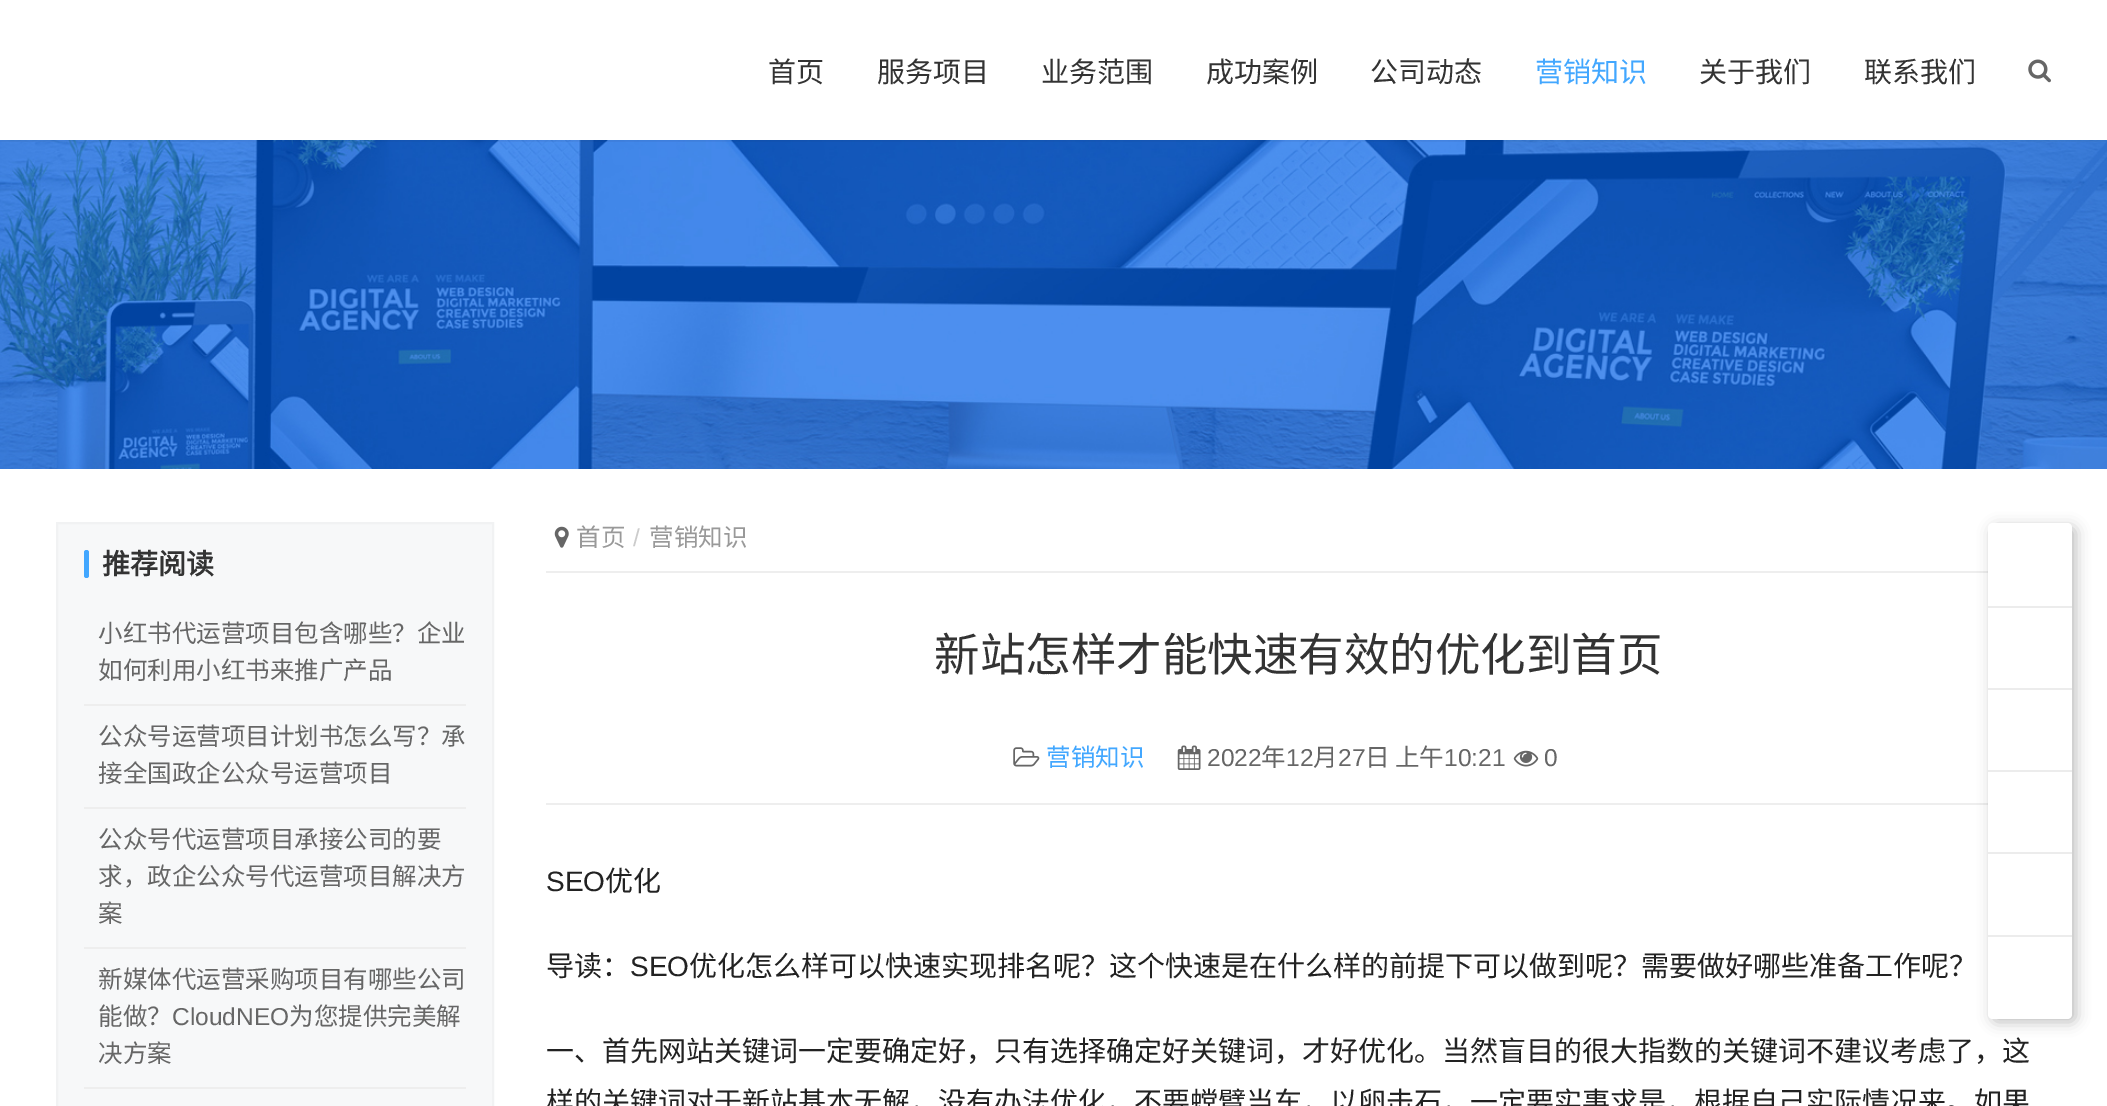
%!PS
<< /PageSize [2107 1106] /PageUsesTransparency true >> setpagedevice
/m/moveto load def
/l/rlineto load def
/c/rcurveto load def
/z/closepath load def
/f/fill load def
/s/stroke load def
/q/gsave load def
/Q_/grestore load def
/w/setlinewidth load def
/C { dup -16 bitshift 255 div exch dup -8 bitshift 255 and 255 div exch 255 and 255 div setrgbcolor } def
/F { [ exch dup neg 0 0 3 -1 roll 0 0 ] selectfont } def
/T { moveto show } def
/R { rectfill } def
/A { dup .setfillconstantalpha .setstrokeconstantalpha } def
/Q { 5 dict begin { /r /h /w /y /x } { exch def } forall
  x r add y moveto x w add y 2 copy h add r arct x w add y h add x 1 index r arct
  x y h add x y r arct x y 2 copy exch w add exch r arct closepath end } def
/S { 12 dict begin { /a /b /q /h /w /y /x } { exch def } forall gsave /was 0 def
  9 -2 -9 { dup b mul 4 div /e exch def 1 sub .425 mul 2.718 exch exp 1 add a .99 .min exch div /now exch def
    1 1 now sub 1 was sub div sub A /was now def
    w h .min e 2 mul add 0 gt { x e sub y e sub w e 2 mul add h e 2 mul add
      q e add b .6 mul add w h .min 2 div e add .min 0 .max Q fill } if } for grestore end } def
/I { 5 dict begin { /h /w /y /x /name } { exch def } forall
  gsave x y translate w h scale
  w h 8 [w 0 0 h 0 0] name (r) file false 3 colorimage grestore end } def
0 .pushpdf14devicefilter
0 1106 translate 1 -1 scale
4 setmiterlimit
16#FFFFFF C
0 0 2107 1106 R
(2.rgb) 0 140 2107 329 I
q
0 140 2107 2 rectclip
16#000000 C
0 2 2107 140 0 1 .05 S
Q_
/NotoSansCJKSC-Regular 28 F
16#333333 C
(首页) 768 82 T
(服务项目) 877 82 T
(业务范围) 1041 82 T
(成功案例) 1206 82 T
(公司动态) 1370 82 T
16#42A7FF C
(营销知识) 1535 82 T
16#333333 C
(关于我们) 1699 82 T
(联系我们) 1864 82 T
(1.rgb) 2028 59 23 24 I
16#F7F8F9 C
57 523 m 436 0 l 0 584 l -436 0 l z q f Q_
16#F1F2F3 C
2 w
s
16#42A7FF C
84 550 5 28 2.5 Q f
/NotoSansCJKSC-Bold 28 F
16#333333 C
(推荐阅读) 102 574 T
16#EEEEEE C
84 704 382 2 R
/NotoSansCJKSC-Regular 24.5 F
16#666666 C
(小红书代运营项目包含哪些？企业) 98 642 T
(如何利用小红书来推广产品) 98 679 T
16#EEEEEE C
84 807 382 2 R
16#666666 C
(公众号运营项目计划书怎么写？承) 98 745 T
(接全国政企公众号运营项目) 98 782 T
16#EEEEEE C
84 947 382 2 R
16#666666 C
(公众号代运营项目承接公司的要) 98 848 T
(求，政企公众号代运营项目解决方) 98 885 T
(案) 98 922 T
16#EEEEEE C
84 1087 382 2 R
16#666666 C
(新媒体代运营采购项目有哪些公司) 98 988 T
(能做？) 98 1025 T
/LiberationSans-Regular 24.5 F
(CloudNEO) 172 1025 T
/NotoSansCJKSC-Regular 24.5 F
(为您提供完美解) 289 1025 T
(决方案) 98 1062 T
16#EEEEEE C
546 571 1442 2 R
(3.rgb) 554 526 15 22 I
16#999999 C
(首页) 576 546 T
/LiberationSans-Regular 24.5 F
16#CCCCCC C
(/) 633 546 T
/NotoSansCJKSC-Regular 24.5 F
16#999999 C
(营销知识) 649 546 T
/NotoSansCJKSC-Regular 45.5 F
16#333333 C
(新站怎样才能快速有效的优化到首页) 934 671 T
16#EEEEEE C
546 803 1442 2 R
(4.rgb) 1013 747 27 20 I
/NotoSansCJKSC-Regular 24.5 F
16#42A7FF C
(营销知识) 1046 766 T
(5.rgb) 1177 745 24 25 I
/LiberationSans-Regular 24.5 F
16#666666 C
(2022) 1207 766 T
/NotoSansCJKSC-Regular 24.5 F
(年) 1261 766 T
/LiberationSans-Regular 24.5 F
(12) 1286 766 T
/NotoSansCJKSC-Regular 24.5 F
(月) 1313 766 T
/LiberationSans-Regular 24.5 F
(27) 1338 766 T
/NotoSansCJKSC-Regular 24.5 F
(日 上午) 1365 766 T
/LiberationSans-Regular 24.5 F
(10:21) 1444 766 T
(6.rgb) 1513 750 26 17 I
(0) 1544 766 T
/LiberationSans-Regular 28 F
16#222222 C
(SEO) 546 891 T
/NotoSansCJKSC-Regular 28 F
(优化) 605 891 T
(导读：) 546 976 T
/LiberationSans-Regular 28 F
(SEO) 630 976 T
/NotoSansCJKSC-Regular 28 F
(优化怎么样可以快速实现排名呢？这个快速是在什么样的前提下可以做到呢？需要做好哪些准备工作呢？) 689 976 T
(一、首先网站关键词一定要确定好，只有选择确定好关键词，才好优化。当然盲目的很大指数的关键词不建议考虑了，这) 546 1061 T
(样的关键词对于新站基本无解，没有办法优化，不要螳臂当车，以卵击石，一定要实事求是，根据自己实际情况来。如果) 546 1112 T
q
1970 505 m 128 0 l 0 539 l -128 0 l z 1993 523 m 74 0 l 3 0 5 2 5 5 c 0 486 l 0 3 -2 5 -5 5 c -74 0 l -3 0 -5 -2 -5 -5 c 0 -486 l 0 -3 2 -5 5 -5 c z eoclip newpath
16#000000 C
1992 527 84 495 5 7 .25 S
Q_
16#FFFFFF C
1993 523 m 74 0 l 3 0 5 2 5 5 c 0 79 l -84 0 l 0 -79 l 0 -3 2 -5 5 -5 c z f
16#ECECEC C
1988 606 84 2 R
1988 688 84 2 R
1988 770 84 2 R
1988 852 84 2 R
16#FFFFFF C
1988 935 m 84 0 l 0 79 l 0 3 -2 5 -5 5 c -74 0 l -3 0 -5 -2 -5 -5 c z f
16#ECECEC C
1988 935 84 2 R
.poppdf14devicefilter showpage
